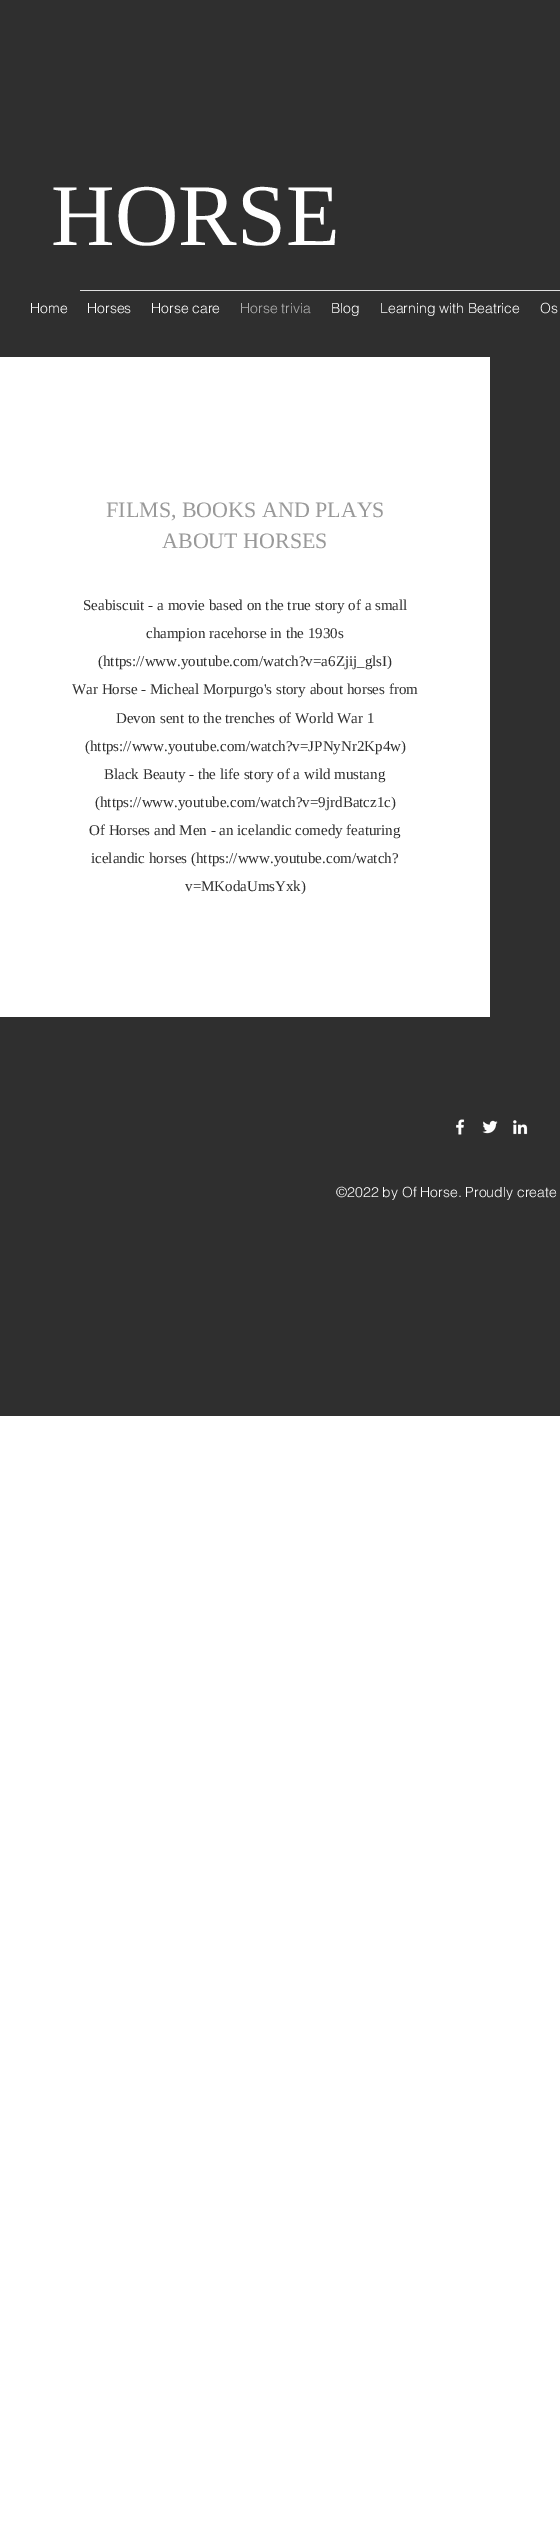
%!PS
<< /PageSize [560 2546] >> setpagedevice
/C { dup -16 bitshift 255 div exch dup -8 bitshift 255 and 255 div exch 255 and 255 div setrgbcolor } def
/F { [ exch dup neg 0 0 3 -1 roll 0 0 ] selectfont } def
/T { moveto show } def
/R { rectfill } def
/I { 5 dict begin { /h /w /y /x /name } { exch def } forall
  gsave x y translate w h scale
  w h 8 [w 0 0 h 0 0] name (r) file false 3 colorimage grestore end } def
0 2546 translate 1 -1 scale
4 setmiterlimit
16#FFFFFF C
0 0 560 2546 R
16#2F2F2F C
0 0 560 1416 R
/LiberationSerif-Regular 88 F
16#FFFFFF C
(HORSE) 51 245 T
16#E0E0E0 C
80 290 480 1 R
/helvetica-Light 14 F
16#FFFFFF C
(Home) 30 313 T
(Horses) 87 313 T
(Horse care) 151 313 T
16#B0B0B0 C
(Horse trivia) 240 313 T
16#FFFFFF C
(Blog) 331 313 T
(Learning with Beatrice) 380 313 T
(Os) 540 313 T
0 357 490 660 R
/LiberationSerif-Regular 22 F
16#999999 C
(FILMS, BOOKS AND PLAYS) 106 517 T
(ABOUT HORSES) 162 548 T
/LiberationSerif-Regular 15 F
16#2F2F2F C
(Seabiscuit - a movie based on the true story of a small) 83 610 T
(champion racehorse in the 1930s) 146 638 T
(\(https://www.youtube.com/watch?v=a6Zjij_glsI\)) 98 666 T
(War Horse - Micheal Morpurgo's story about horses from) 72 694 T
(Devon sent to the trenches of World War 1) 116 723 T
(\(https://www.youtube.com/watch?v=JPNyNr2Kp4w\)) 85 751 T
(Black Beauty - the life story of a wild mustang) 104 779 T
(\(https://www.youtube.com/watch?v=9jrdBatcz1c\)) 95 807 T
(Of Horses and Men - an icelandic comedy featuring) 89 835 T
(icelandic horses \(https://www.youtube.com/watch?) 91 863 T
(v=MKodaUmsYxk\)) 185 891 T
(1.rgb) 456 1119 9 16 I
(2.rgb) 482 1120 16 14 I
(3.rgb) 513 1120 15 15 I
/helvetica-Light 14 F
16#FFFFFF C
(©2022 by Of Horse. Proudly create) 336 1197 T
showpage
